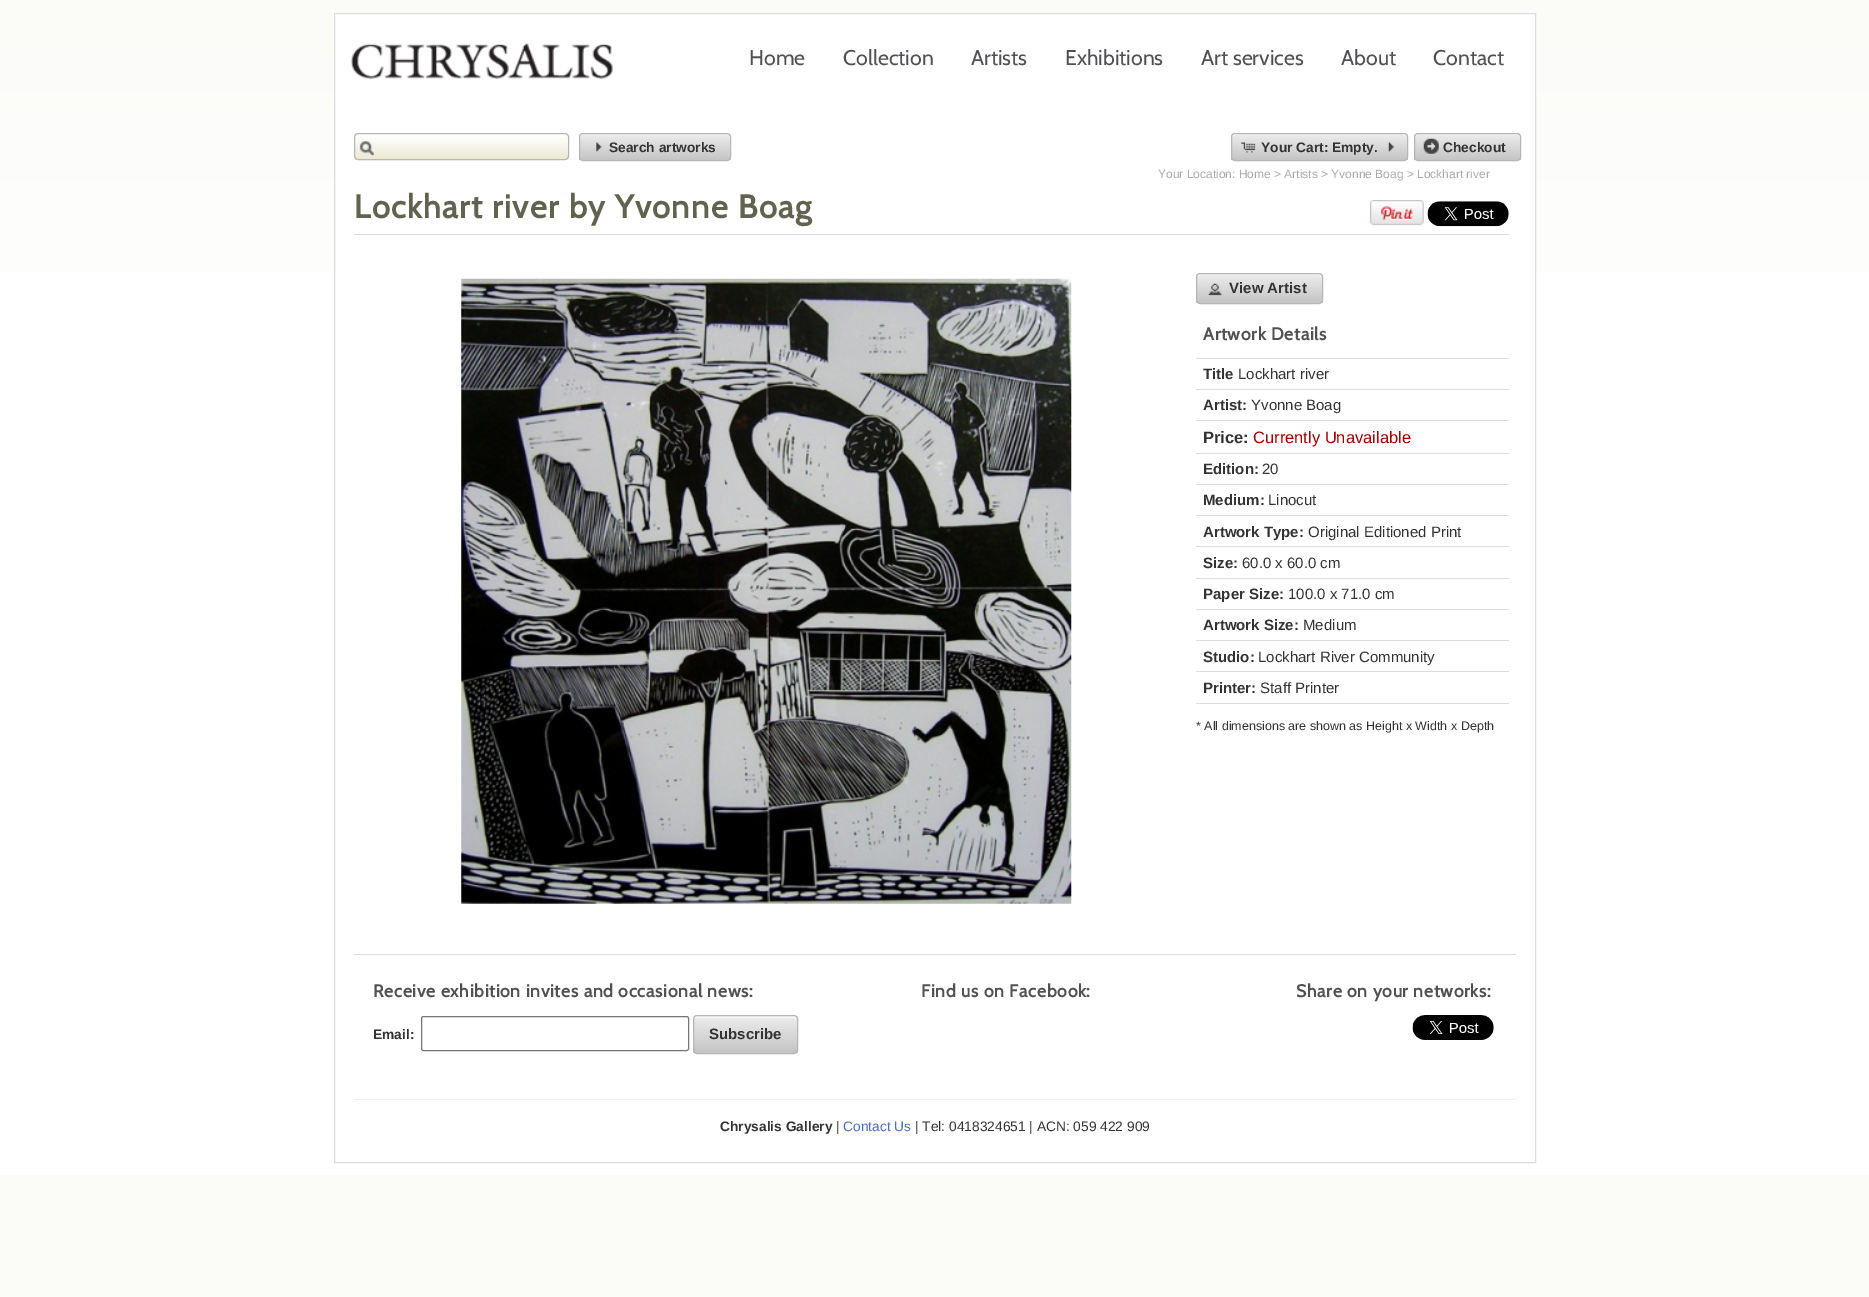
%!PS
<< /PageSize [1869 1297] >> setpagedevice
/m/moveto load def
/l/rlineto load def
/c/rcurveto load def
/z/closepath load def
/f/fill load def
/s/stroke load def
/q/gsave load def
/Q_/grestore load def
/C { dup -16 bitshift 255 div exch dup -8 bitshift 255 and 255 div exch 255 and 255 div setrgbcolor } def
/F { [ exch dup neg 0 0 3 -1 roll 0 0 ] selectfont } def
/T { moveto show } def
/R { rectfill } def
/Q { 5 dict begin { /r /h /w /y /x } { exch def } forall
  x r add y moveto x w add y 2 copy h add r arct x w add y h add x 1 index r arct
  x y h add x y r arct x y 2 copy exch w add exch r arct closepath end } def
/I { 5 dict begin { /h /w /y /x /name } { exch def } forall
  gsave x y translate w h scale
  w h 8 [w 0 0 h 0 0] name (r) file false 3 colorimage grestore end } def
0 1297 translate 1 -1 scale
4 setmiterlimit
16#FFFFFF C
0 0 1869 1297 R
q 0 0 m 1869 0 l 0 272 l -1869 0 l z clip newpath
<< /ShadingType 2 /ColorSpace /DeviceRGB /Coords [935 0 935 1175] /Extend [true true] /Function << /FunctionType 3 /Domain [0 1] /Functions [<< /FunctionType 2 /Domain [0 1] /C0 [.984 .984 .973] /C1 [1 1 1] /N 1 >> << /FunctionType 2 /Domain [0 1] /C0 [1 1 1] /C1 [1 1 1] /N 1 >>] /Bounds [.36] /Encode [0 1 0 1] >> >> shfill Q_
q 0 1175 m 1869 0 l 0 122 l -1869 0 l z clip newpath
<< /ShadingType 2 /ColorSpace /DeviceRGB /Coords [935 1175 935 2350] /Extend [true true] /Function << /FunctionType 3 /Domain [0 1] /Functions [<< /FunctionType 2 /Domain [0 1] /C0 [.984 .984 .969] /C1 [1 1 1] /N 1 >> << /FunctionType 2 /Domain [0 1] /C0 [1 1 1] /C1 [1 1 1] /N 1 >>] /Bounds [.36] /Encode [0 1 0 1] >> >> shfill Q_
335 14 1200 258 R
16#DDDDDD C
334.5 13.5 1201 1149 rectstroke
(1.rgb) 351 43 262 36 I
/Cabin-Regular 21.25 F
16#525054 C
(Home) 749 65 T
(Collection) 843 65 T
(Artists) 971 65 T
(Exhibitions) 1065 65 T
(Art services) 1201 65 T
(About) 1341 65 T
(Contact) 1433 65 T
(2.rgb) 355 137 214 23 I
16#B6B6B6 C
354.5 133.5 214 26 3.5 Q s
q
579 133 152 28 4 Q clip newpath
q 579 134 m 152 0 l 0 26 l -152 0 l z clip newpath
<< /ShadingType 2 /ColorSpace /DeviceRGB /Coords [580 160 580 134] /Extend [true true] /Function << /FunctionType 2 /Domain [0 1] /C0 [.769 .769 .769] /C1 [.929 .929 .929] /N 1 >> >> shfill Q_
Q_
16#F7F7F7 C
582 135 m 146 0 l 1 0 2 1 2 3 c 0 -2 0 -4 -2 -4 c -146 0 l -2 0 -2 2 -2 4 c 0 -2 1 -3 2 -3 c z f
16#B6B6B6 C
579.5 133.5 151 27 3.5 Q s
(3.rgb) 596 142 6 10 I
/LiberationSans-Bold 13.75 F
16#333333 C
(Search artworks) 609 152 T
q
1231 133 177 28 4 Q clip newpath
q 1231 134 m 177 0 l 0 26 l -177 0 l z clip newpath
<< /ShadingType 2 /ColorSpace /DeviceRGB /Coords [1233 160 1233 134] /Extend [true true] /Function << /FunctionType 2 /Domain [0 1] /C0 [.769 .769 .769] /C1 [.929 .929 .929] /N 1 >> >> shfill Q_
Q_
16#F7F7F7 C
1235 135 m 169 0 l 1 0 2 1 2 3 c 0 -2 l 0 -1 -1 -2 -2 -2 c -168 0 l -2 0 -3 1 -3 2 c z f
16#B6B6B6 C
1231.5 133.5 176 27 3.5 Q s
(4.rgb) 1241 142 15 11 I
16#333333 C
(Your Cart: Empty.) 1261 152 T
(5.rgb) 1388 142 6 10 I
q
1414 133 107 28 4 Q clip newpath
q 1414 134 m 107 0 l 0 26 l -107 0 l z clip newpath
<< /ShadingType 2 /ColorSpace /DeviceRGB /Coords [1415 160 1415 134] /Extend [true true] /Function << /FunctionType 2 /Domain [0 1] /C0 [.769 .769 .769] /C1 [.929 .929 .929] /N 1 >> >> shfill Q_
Q_
16#F7F7F7 C
1418 135 m 100 0 l 1 0 2 1 2 3 c 0 -2 l 0 -1 -1 -2 -2 -2 c -100 0 l -2 0 -3 1 -3 2 c 0 2 l 0 -2 1 -3 3 -3 c z f
16#B6B6B6 C
1414.5 133.5 106 27 3.5 Q s
(6.rgb) 1423 138 16 16 I
16#333333 C
(Checkout) 1443 152 T
16#DCDCDC C
354 234 1155 1 R
/LiberationSans-Regular 12 F
16#AAAAAA C
(Your Location: Home > Artists > Yvonne Boag > Lockhart river) 1158 178 T
/Cabin-Bold 32.5 F
16#626250 C
354 218 m .5 0 32 1.4 0 (Lockhart river by Yvonne Boag) awidthshow
(7.rgb) 1370 200 54 26 I
(8.rgb) 1427 201 82 26 I
(9.rgb) 461 278 611 626 I
q
1196 273 127 31 4 Q clip newpath
q 1196 274 m 127 0 l 0 29 l -127 0 l z clip newpath
<< /ShadingType 2 /ColorSpace /DeviceRGB /Coords [1198 303 1198 274] /Extend [true true] /Function << /FunctionType 2 /Domain [0 1] /C0 [.769 .769 .769] /C1 [.929 .929 .929] /N 1 >> >> shfill Q_
Q_
16#F7F7F7 C
1200 275 m 119 0 l 1 0 2 1 2 3 c 0 -2 l 0 -1 -1 -2 -3 -2 c -118 0 l -1 0 -2 1 -2 2 c 0 2 l 0 -2 1 -3 2 -3 c z f
16#B6B6B6 C
1196.5 273.5 126 30 3.5 Q s
(10.rgb) 1208 283 14 13 I
/LiberationSans-Bold 15 F
16#333333 C
(View Artist) 1229 293 T
16#DDDDDD C
1196 358 313 1 R
/Cabin-Bold 17.5 F
16#525054 C
1203 340 m .75 0 (Artwork Details) ashow
16#DDDDDD C
1196 389 313 1 R
/LiberationSans-Bold 15 F
16#333333 C
(Title) 1203 379 T
/LiberationSans-Regular 15 F
(Lockhart river) 1238 379 T
16#DDDDDD C
1196 420 313 1 R
/LiberationSans-Bold 15 F
16#333333 C
(Artist:) 1203 410 T
/LiberationSans-Regular 15 F
(Yvonne Boag) 1251 410 T
16#DDDDDD C
1196 453 313 1 R
/LiberationSans-Bold 16.5 F
16#333333 C
(Price:) 1203 443 T
/LiberationSans-Regular 16.5 F
16#990000 C
(Currently Unavailable) 1253 443 T
16#DDDDDD C
1196 484 313 1 R
/LiberationSans-Bold 15 F
16#333333 C
(Edition:) 1203 474 T
/LiberationSans-Regular 15 F
(20) 1262 474 T
16#DDDDDD C
1196 515 313 1 R
/LiberationSans-Bold 15 F
16#333333 C
(Medium:) 1203 505 T
/LiberationSans-Regular 15 F
(Linocut) 1268 505 T
16#DDDDDD C
1196 546 313 1 R
/LiberationSans-Bold 15 F
16#333333 C
(Artwork Type:) 1203 537 T
/LiberationSans-Regular 15 F
(Original Editioned Print) 1308 537 T
16#DDDDDD C
1196 578 313 1 R
/LiberationSans-Bold 15 F
16#333333 C
(Size:) 1203 568 T
/LiberationSans-Regular 15 F
(60.0 x 60.0 cm) 1242 568 T
16#DDDDDD C
1196 609 313 1 R
/LiberationSans-Bold 15 F
16#333333 C
(Paper Size:) 1203 599 T
/LiberationSans-Regular 15 F
(100.0 x 71.0 cm) 1288 599 T
16#DDDDDD C
1196 640 313 1 R
/LiberationSans-Bold 15 F
16#333333 C
(Artwork Size:) 1203 630 T
/LiberationSans-Regular 15 F
(Medium) 1303 630 T
16#DDDDDD C
1196 671 313 1 R
/LiberationSans-Bold 15 F
16#333333 C
(Studio:) 1203 662 T
/LiberationSans-Regular 15 F
(Lockhart River Community) 1258 662 T
16#DDDDDD C
1196 703 313 1 R
/LiberationSans-Bold 15 F
16#333333 C
(Printer:) 1203 693 T
/LiberationSans-Regular 15 F
(Staff Printer) 1260 693 T
/LiberationSans-Regular 12.5 F
(* All dimensions are shown as Height x Width x Depth) 1196 730 T
16#DDDDDD C
354 954 1162 1 R
/Cabin-Bold 17.5 F
16#525054 C
373 997 m .75 0 (Receive exhibition invites and occasional news:) ashow
/LiberationSans-Bold 13.75 F
16#333333 C
(Email:) 373 1039 T
16#767676 C
421.5 1016.5 267 34 2 Q s
q
693 1015 105 39 4 Q clip newpath
q 693 1016 m 105 0 l 0 37 l -105 0 l z clip newpath
<< /ShadingType 2 /ColorSpace /DeviceRGB /Coords [694 1053 694 1016] /Extend [true true] /Function << /FunctionType 2 /Domain [0 1] /C0 [.769 .769 .769] /C1 [.929 .929 .929] /N 1 >> >> shfill Q_
Q_
16#F7F7F7 C
696 1018 m 98 0 l 1 0 2 1 2 2 c 0 -2 l 0 -1 -1 -2 -2 -2 c -98 0 l -1 0 -2 1 -2 2 c 0 2 l 0 -1 1 -2 2 -2 c z f
16#B6B6B6 C
693.5 1015.5 104 38 3.5 Q s
/LiberationSans-Bold 15 F
16#333333 C
(Subscribe) 709 1039 T
/Cabin-Bold 17.5 F
16#525054 C
921 997 m .75 0 (Find us on Facebook:) ashow
1296 997 m .75 0 (Share on your networks:) ashow
(11.rgb) 1412 1015 82 25 I
16#EFEFEF C
354 1099 1162 1 R
/LiberationSans-Bold 13.75 F
16#333333 C
(Chrysalis Gallery) 720 1131 T
/LiberationSans-Regular 13.75 F
(|) 836 1131 T
16#4C6CC4 C
(Contact Us) 843 1131 T
16#333333 C
(| Tel: 0418324651 | ACN: 059 422 909) 915 1131 T
showpage
